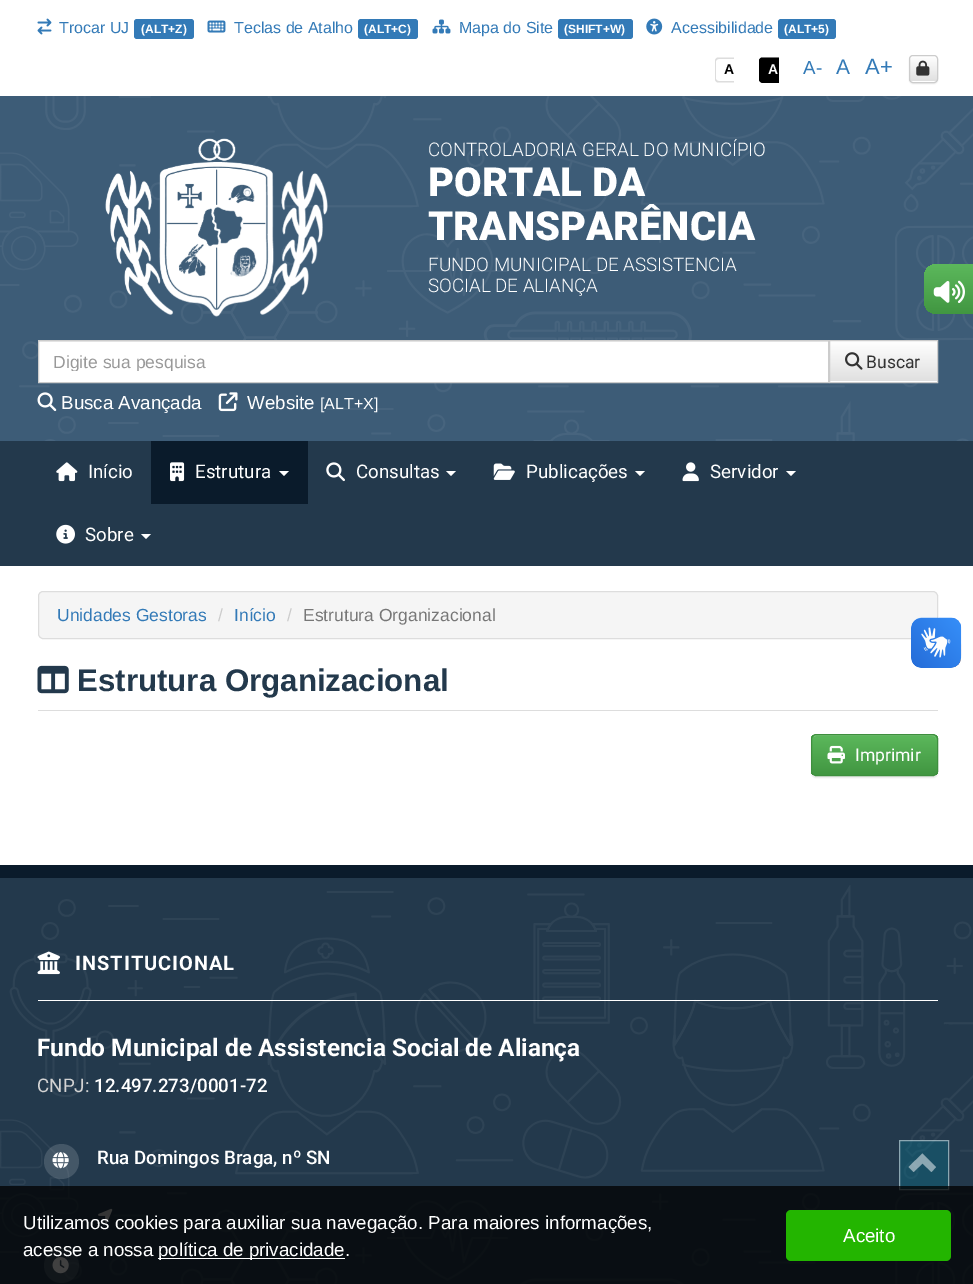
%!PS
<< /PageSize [973 1284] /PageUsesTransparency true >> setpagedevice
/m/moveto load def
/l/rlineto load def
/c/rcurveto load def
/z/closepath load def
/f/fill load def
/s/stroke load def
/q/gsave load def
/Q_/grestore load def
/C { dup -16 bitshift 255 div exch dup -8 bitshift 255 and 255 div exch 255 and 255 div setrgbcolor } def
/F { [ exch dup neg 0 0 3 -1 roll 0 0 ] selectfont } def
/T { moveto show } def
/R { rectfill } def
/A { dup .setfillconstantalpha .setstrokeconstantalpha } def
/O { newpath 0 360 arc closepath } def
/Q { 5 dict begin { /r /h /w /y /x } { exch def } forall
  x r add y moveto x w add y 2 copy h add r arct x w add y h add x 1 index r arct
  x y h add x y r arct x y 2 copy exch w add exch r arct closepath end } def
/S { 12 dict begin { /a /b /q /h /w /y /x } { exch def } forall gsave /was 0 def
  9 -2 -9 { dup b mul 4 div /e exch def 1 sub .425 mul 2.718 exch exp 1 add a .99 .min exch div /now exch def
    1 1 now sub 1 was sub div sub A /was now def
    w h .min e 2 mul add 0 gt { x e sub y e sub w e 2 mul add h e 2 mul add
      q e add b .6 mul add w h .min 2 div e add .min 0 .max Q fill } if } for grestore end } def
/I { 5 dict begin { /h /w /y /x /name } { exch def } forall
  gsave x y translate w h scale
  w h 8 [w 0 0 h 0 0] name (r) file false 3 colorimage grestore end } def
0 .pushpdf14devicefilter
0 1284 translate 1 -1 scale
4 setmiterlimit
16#FFFFFF C
0 0 973 1284 R
(1.rgb) 37 18 15 17 I
/LiberationSans-Regular 16 F
16#337AB7 C
(Trocar UJ) 59 33 T
134 19 60 20 3 Q f
/LiberationSans-Bold 12 F
16#FFFFFF C
(\(ALT+Z\)) 141 33 T
(2.rgb) 207 20 19 13 I
/LiberationSans-Regular 16 F
16#337AB7 C
(Teclas de Atalho) 234 33 T
358 19 60 20 3 Q f
/LiberationSans-Bold 12 F
16#FFFFFF C
(\(ALT+C\)) 364 33 T
(3.rgb) 432 19 19 15 I
/LiberationSans-Regular 16 F
16#337AB7 C
(Mapa do Site) 459 33 T
558 19 75 20 3 Q f
/LiberationSans-Bold 12 F
16#FFFFFF C
(\(SHIFT+W\)) 564 33 T
(4.rgb) 646 18 17 17 I
/LiberationSans-Regular 16 F
16#337AB7 C
(Acessibilidade) 671 33 T
778 19 58 20 3 Q f
/LiberationSans-Bold 12 F
16#FFFFFF C
(\(ALT+5\)) 784 33 T
16#DDDDDD C
718.5 57.5 m 15.5 0 l 0 25 l -15.5 0 l -2 0 -3.5 -1.5 -3.5 -3.5 c 0 -18 l 0 -2 1.5 -3.5 3.5 -3.5 c z 718.5 59 m 15.5 0 l 0 22 l -15.5 0 l -1 0 -2.5 -1 -2.5 -2 c 0 -18 l 0 -1 1.5 -2 2.5 -2 c z eofill
/LiberationSans-Bold 14 F
16#000000 C
(A) 724 74 T
763 58 m 16 0 l 0 25 l -16 0 l -2 0 -4 -2 -4 -4 c 0 -17 l 0 -2 2 -4 4 -4 c z f
762.5 57.5 m 16.5 0 l 0 25 l -16.5 0 l -2 0 -3.5 -1.5 -3.5 -3.5 c 0 -18 l 0 -2 1.5 -3.5 3.5 -3.5 c z 762.5 59 m 16.5 0 l 0 22 l -16.5 0 l -1.5 0 -2.5 -1 -2.5 -2 c 0 -18 l 0 -1 1 -2 2.5 -2 c z eofill
16#FFFFFF C
(A) 768 74 T
/LiberationSans-Regular 18.75 F
16#337AB7 C
(A-) 803 74 T
/LiberationSans-Regular 21 F
(A) 836 74 T
/LiberationSans-Regular 22 F
(A+) 865 74 T
16#000000 C
909 56 29 28 4 .5 .07 S
16#FFFFFF C
909 55 29 28 4 Q f
q
909 55 29 28 4 Q clip newpath
q 909 56 m 29 0 l 0 25 l -29 0 l z clip newpath
<< /ShadingType 2 /ColorSpace /DeviceRGB /Coords [923 56 923 81] /Extend [true true] /Function << /FunctionType 2 /Domain [0 1] /C0 [1 1 1] /C1 [.878 .878 .878] /N 1 >> >> shfill Q_
Q_
16#CCCCCC C
909.5 55.5 28 27 3.5 Q s
(5.rgb) 916 60 14 16 I
16#3D5C77 C
0 96 973 345 R
(6.rgb) 0 96 973 345 I
(7.rgb) 105 138 223 179 I
/Roboto-Light 18.75 F
16#FFFFFF C
(CONTROLADORIA GERAL DO MUNICÍPIO) 428 156 T
/Roboto-Black 40 F
(PORTAL DA) 428 196 T
(TRANSPARÊNCIA) 428 240 T
/Roboto-Light 18.75 F
(FUNDO MUNICIPAL DE ASSISTENCIA) 428 271 T
(SOCIAL DE ALIANÇA) 428 292 T
39 342 789 40 R
16#ECECEC C
39 341 789 1 R
16#CCCCCC C
38.5 340.5 790 42 rectstroke
q
54 351 759 20 rectclip
/LiberationSans-Regular 17.5 F
16#999999 C
(Digite sua pesquisa) 53 368 T
Q_
16#FFFFFF C
830 381 107 1 R
q 830 341 m 107 0 l 0 40 l -107 0 l z clip newpath
<< /ShadingType 2 /ColorSpace /DeviceRGB /Coords [883 341 883 381] /Extend [true true] /Function << /FunctionType 2 /Domain [0 1] /C0 [1 1 1] /C1 [.878 .878 .878] /N 1 >> >> shfill Q_
16#CCCCCC C
829.5 340.5 108 42 rectstroke
(8.rgb) 845 352 18 18 I
/Roboto-Regular 17.5 F
16#333333 C
(Buscar) 866 368 T
(9.rgb) 37 392 20 20 I
/LiberationSans-Regular 18.75 F
16#FFFFFF C
(Busca Avançada) 61 409 T
(10.rgb) 218 392 20 20 I
(Website) 247 409 T
/LiberationSans-Regular 16 F
([ALT+X]) 320 409 T
16#23394C C
0 441 973 125 R
(11.rgb) 56 462 22 20 I
/Roboto-Regular 18.75 F
16#FFFFFF C
(Início) 88 478 T
16#0A1B2B C
151 441 157 63 R
(12.rgb) 170 462 15 20 I
16#FFFFFF C
(Estrutura) 195 478 T
279 471 m 10 0 l -5 5 l z f
(13.rgb) 326 462 19 20 I
(Consultas) 356 478 T
446 471 m 10 0 l -5 5 l z f
(14.rgb) 493 463 22 17 I
(Publicações) 526 478 T
635 471 m 10 0 l -5 5 l z f
(15.rgb) 682 462 17 20 I
(Servidor) 710 478 T
786 471 m 10 0 l -5 5 l z f
(16.rgb) 56 524 19 20 I
(Sobre) 85 541 T
141 534 m 10 0 l -5 5 l z f
16#F5F5F5 C
38.5 591.5 899 47 4.5 Q q f Q_
16#DDDDDD C
s
/LiberationSans-Regular 17.5 F
16#337AB7 C
(Unidades Gestoras) 57 621 T
16#CCCCCC C
(/) 218 621 T
16#337AB7 C
(Início) 234 621 T
16#CCCCCC C
(/) 287 621 T
16#777777 C
(Estrutura Organizacional) 303 621 T
16#DDDDDD C
38 710 900 1 R
(17.rgb) 37 665 32 29 I
/LiberationSans-Bold 31.25 F
16#23394C C
(Estrutura Organizacional) 77 691 T
16#000000 C
811 735 127 43 5 .5 .07 S
q
811 734 127 42 5 Q clip newpath
q 811 735 m 127 0 l 0 40 l -127 0 l z clip newpath
<< /ShadingType 2 /ColorSpace /DeviceRGB /Coords [874 735 874 775] /Extend [true true] /Function << /FunctionType 2 /Domain [0 1] /C0 [.361 .722 .361] /C1 [.255 .588 .255] /N 1 >> >> shfill Q_
Q_
16#74C374 C
816 736 m 116 0 l 3 0 4 2 4 4 c -1 -4 l -3 -1 l -116 0 l -1 0 -2 1 -2 2 c z f
16#3E8F3E C
811.5 734.5 126 41 4.5 Q s
(18.rgb) 827 745 18 19 I
/Roboto-Regular 17.5 F
16#FFFFFF C
(Imprimir) 855 761 T
(19.rgb) 911 617 51 51 I
(20.rgb) 911 618 50 50 I
q 937 264 m 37 0 l 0 50 l -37 0 l -7 0 -13 -6 -13 -13 c 0 -24 l 0 -7 6 -13 13 -13 c z clip newpath
<< /ShadingType 2 /ColorSpace /DeviceRGB /Coords [949 264 949 314] /Extend [true true] /Function << /FunctionType 2 /Domain [0 1] /C0 [.361 .722 .361] /C1 [.255 .588 .255] /N 1 >> >> shfill Q_
(21.rgb) 933 280 32 23 I
16#23394C C
0 878 973 406 R
(22.rgb) 0 885 973 399 I
16#0A1B2B C
0 865 973 13 R
16#FFFFFF C
38 1000 900 1 R
(23.rgb) 37 951 23 24 I
/Roboto-Bold 20 F
75 970 m 1 0 (INSTITUCIONAL) ashow
/Roboto-Bold 24.4 F
(Fundo Municipal de Assistencia Social de Aliança) 37 1056 T
/Roboto-Regular 18.75 F
16#D3D3D3 C
(CNPJ:) 37 1092 T
/Roboto-Medium 18.75 F
16#FFFFFF C
(12.497.273/0001-72) 94 1092 T
0.15 A
61.5 1161.5 17.5 O f
1 A
(24.rgb) 52 1152 17 17 I
(Rua Domingos Braga, nº SN) 97 1164 T
(25.rgb) 98 1208 15 15 I
0.15 A
61.5 1265.5 17.5 O f
1 A
(26.rgb) 52 1257 17 17 I
0.4 A
16#097189 C
899 1140 50 50 R
0.5 A
16#FFFFFF C
899.5 1140.5 49 49 rectstroke
936 1167 m -4.5 5 l -9 -8.5 l -9 8.5 l -5 -5 l 14 -13.5 l z f
0.75 A
16#000000 C
0 1186 973 98 R
/LiberationSans-Regular 18.75 F
1 A
16#FFFFFF C
(Utilizamos cookies para auxiliar sua navegação. Para maiores informações,) 23 1229 T
(acesse a nossa) 23 1256 T
158 1258 187 1 R
(política de privacidade.) 158 1256 T
16#23B500 C
786 1210 165 51 5 Q f
16#FFFFFF C
(Aceito) 843 1242 T
.poppdf14devicefilter showpage
